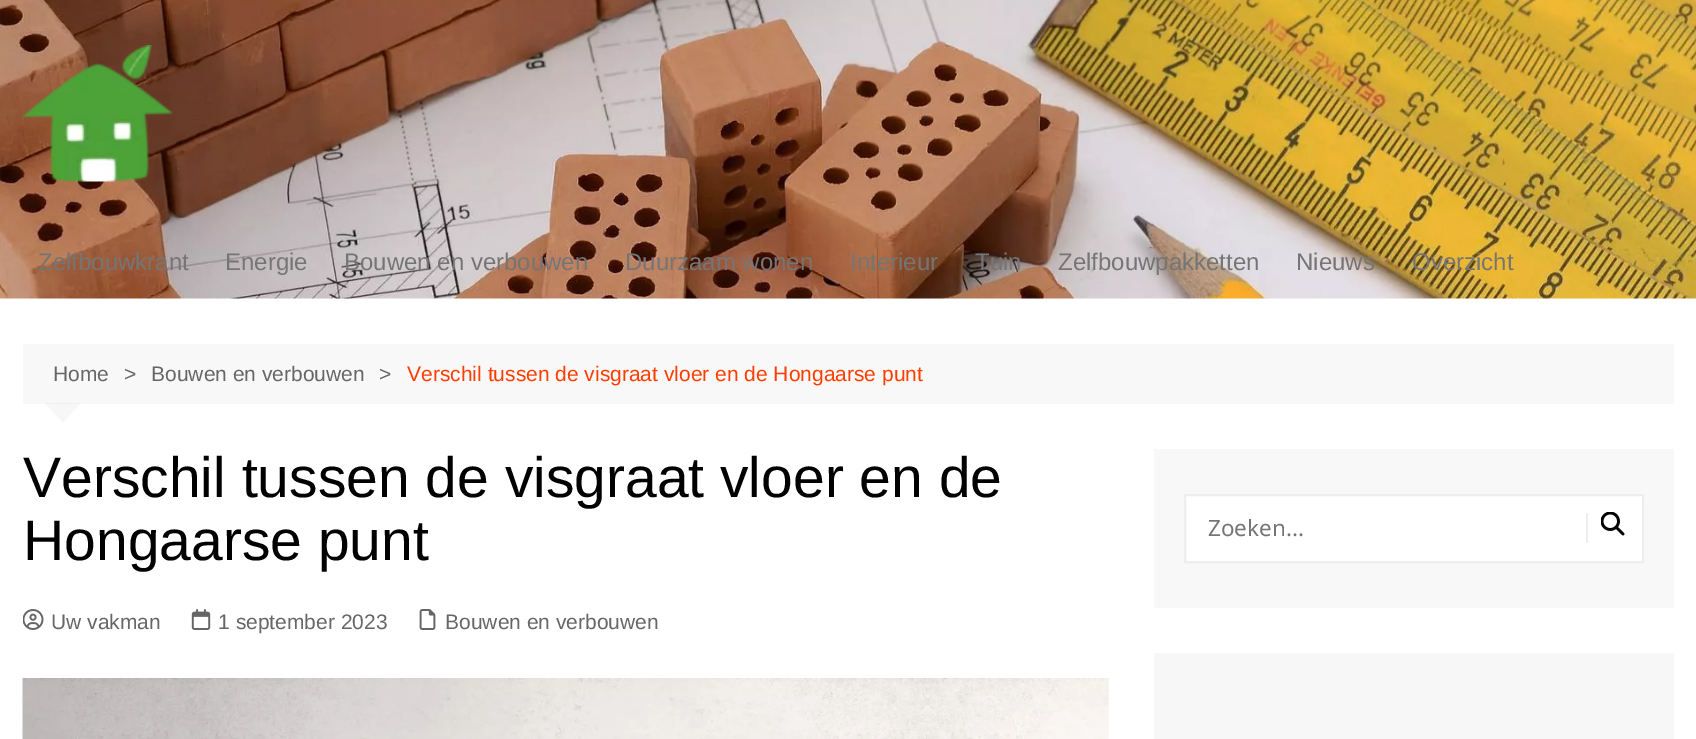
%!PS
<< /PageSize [1696 739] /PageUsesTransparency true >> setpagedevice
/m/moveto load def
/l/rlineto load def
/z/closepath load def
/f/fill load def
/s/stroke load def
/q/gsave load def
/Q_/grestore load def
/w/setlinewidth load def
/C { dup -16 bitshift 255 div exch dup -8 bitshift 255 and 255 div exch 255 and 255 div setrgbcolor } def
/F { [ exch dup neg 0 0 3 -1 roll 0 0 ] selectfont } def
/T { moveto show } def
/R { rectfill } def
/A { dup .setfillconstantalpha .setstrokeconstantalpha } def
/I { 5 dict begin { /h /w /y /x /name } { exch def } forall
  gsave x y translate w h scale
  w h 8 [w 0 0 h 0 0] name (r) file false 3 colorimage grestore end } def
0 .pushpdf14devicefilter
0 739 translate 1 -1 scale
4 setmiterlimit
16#FFFFFF C
0 0 1696 739 R
(1.rgb) 0 0 1696 299 I
(2.rgb) 22 45 151 137 I
/LiberationSans-Regular 24 F
16#757575 C
(Zelfbouwkrant) 38 270 T
(Energie) 225 270 T
(Bouwen en verbouwen) 344 270 T
(Duurzaam wonen) 625 270 T
(Interieur) 850 270 T
(Tuin) 975 270 T
(Zelfbouwpakketten) 1058 270 T
(Nieuws) 1296 270 T
(Overzicht) 1412 270 T
16#F8F8F8 C
23 344 1651 60 R
/LiberationSans-Regular 21 F
16#666666 C
(Home) 53 381 T
(>) 124 381 T
(Bouwen en verbouwen) 151 381 T
(>) 379 381 T
16#FF3D00 C
(Verschil tussen de visgraat vloer en de Hongaarse punt) 407 381 T
0.03 A
16#000000 C
45 403 m 36 0 l -18 19.5 l z f
/LiberationSans-Regular 57 F
1 A
16#010101 C
(Verschil tussen de visgraat vloer en de) 23 497 T
(Hongaarse punt) 23 560 T
(3.rgb) 23 609 21 21 I
/LiberationSans-Regular 21 F
16#666666 C
(Uw vakman) 51 629 T
(4.rgb) 191 609 20 21 I
(1 september 2023) 218 629 T
(5.rgb) 419 609 17 21 I
(Bouwen en verbouwen) 445 629 T
(6.rgb) 22 678 1087 61 I
16#F8F8F8 C
1154 449 520 159 R
16#FFFFFF C
1185 495 m 458 0 l 0 67 l -458 0 l z q f Q_
16#EEEEEE C
2 w
s
/NotoSans-Regular 22.5 F
16#757575 C
(Zoeken...) 1208 536 T
16#EEEEEE C
1586 513 2 30 R
(7.rgb) 1601 512 24 24 I
16#F7F7F7 C
1154 653 520 86 R
.poppdf14devicefilter showpage
